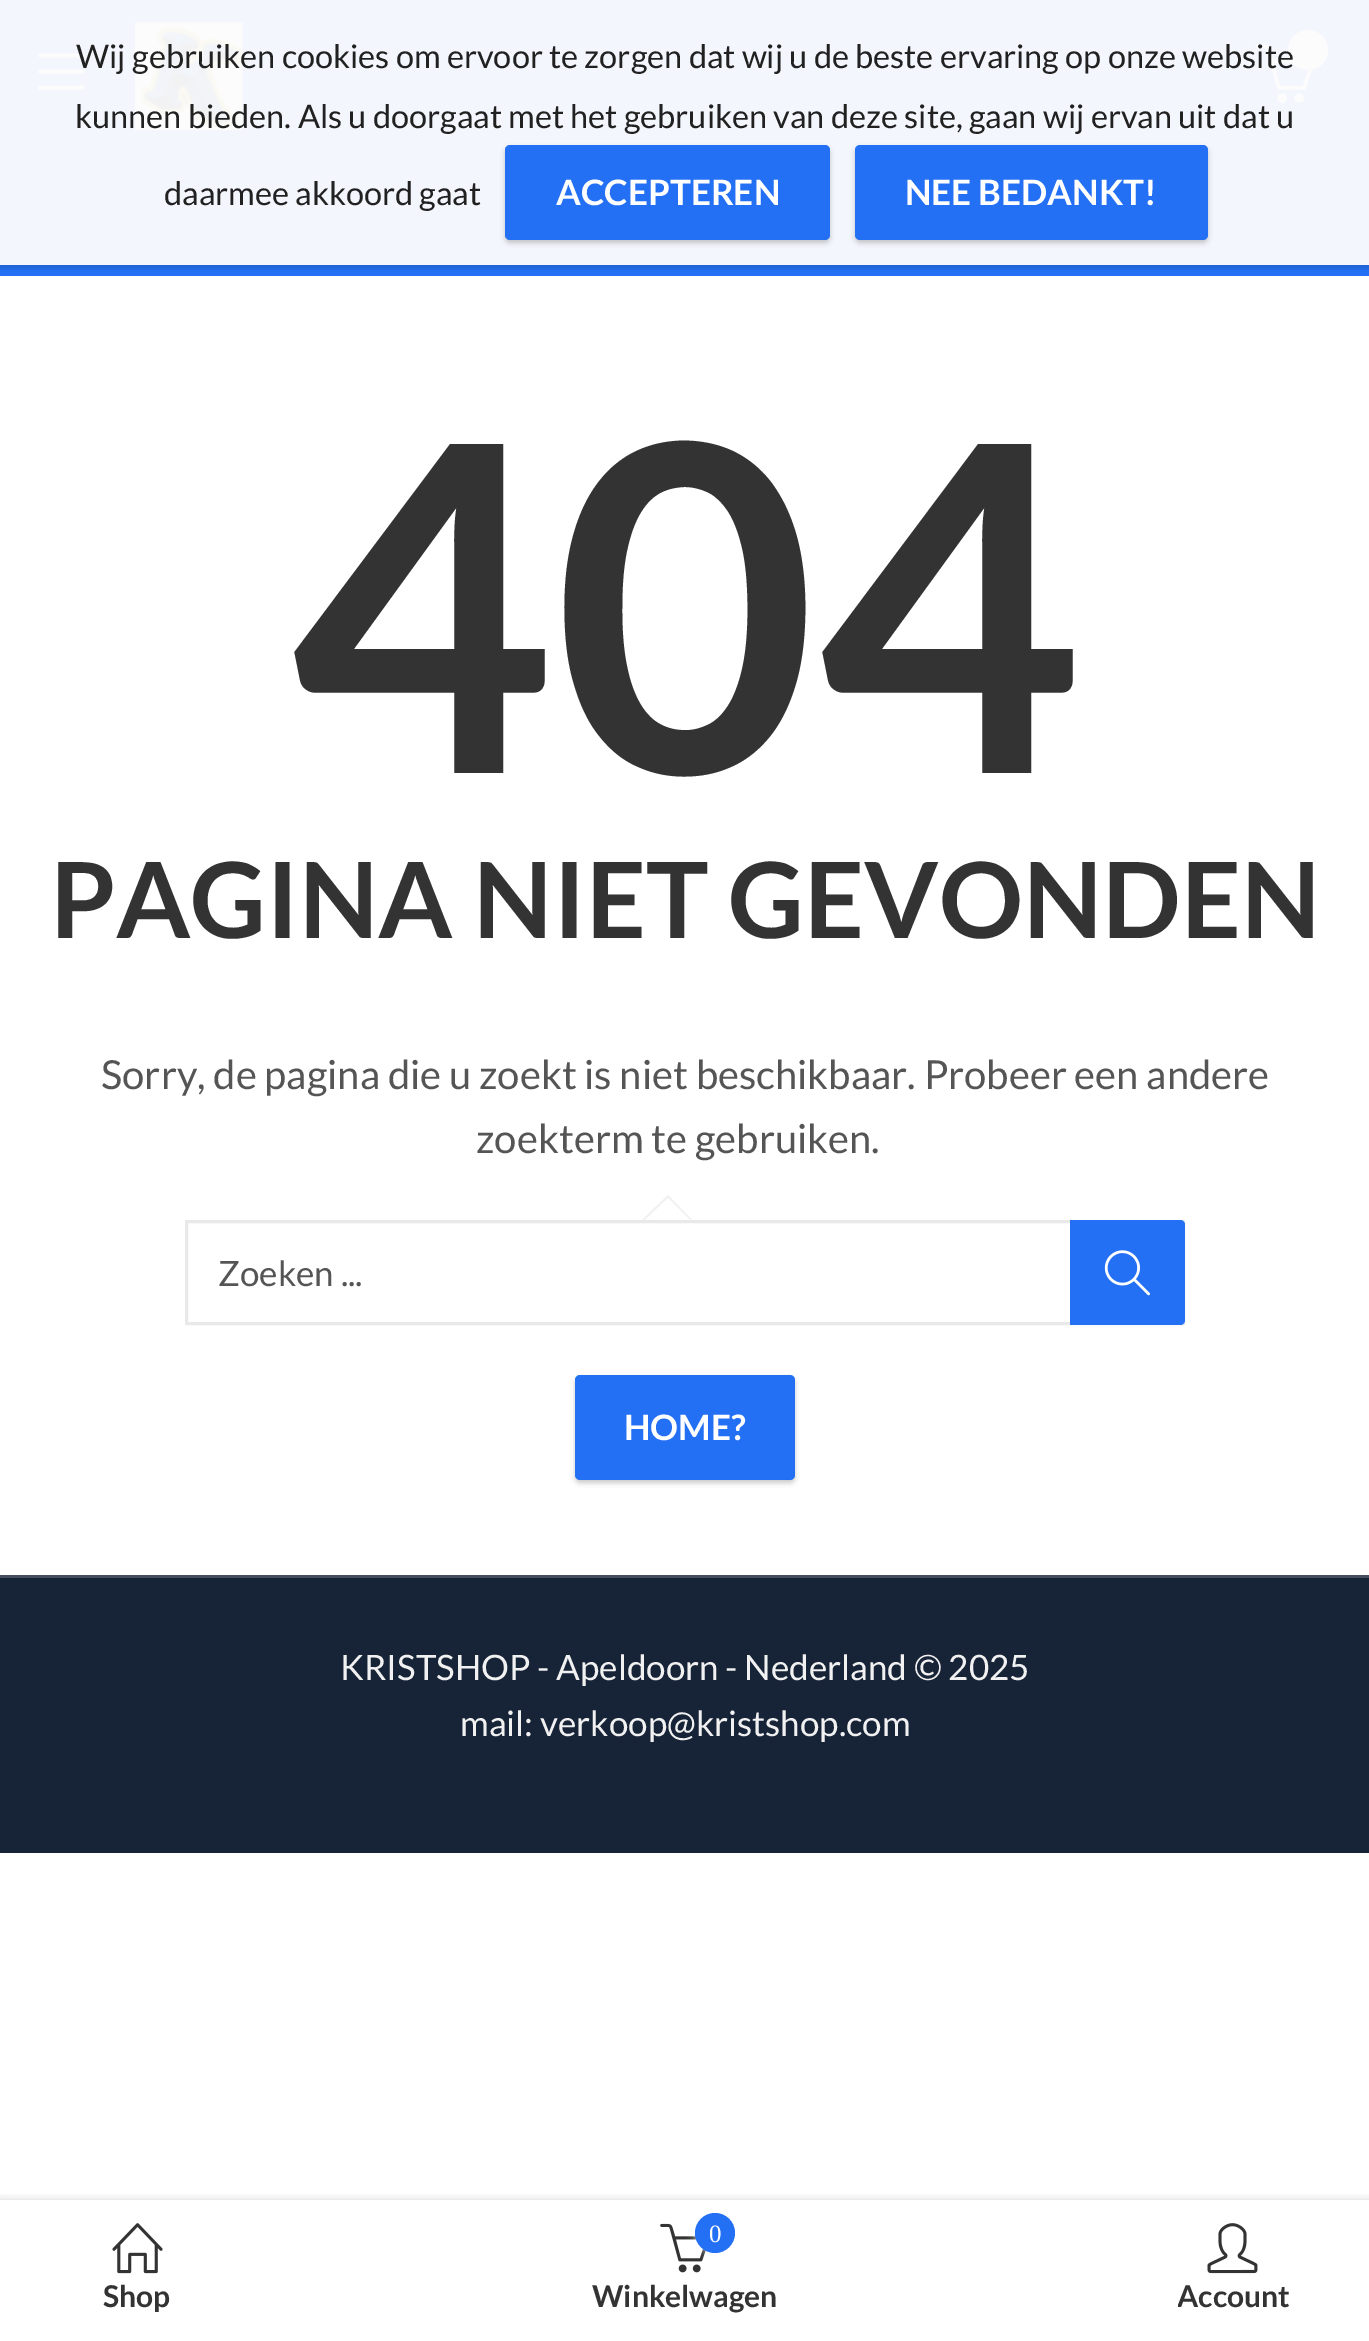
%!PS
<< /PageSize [1369 2341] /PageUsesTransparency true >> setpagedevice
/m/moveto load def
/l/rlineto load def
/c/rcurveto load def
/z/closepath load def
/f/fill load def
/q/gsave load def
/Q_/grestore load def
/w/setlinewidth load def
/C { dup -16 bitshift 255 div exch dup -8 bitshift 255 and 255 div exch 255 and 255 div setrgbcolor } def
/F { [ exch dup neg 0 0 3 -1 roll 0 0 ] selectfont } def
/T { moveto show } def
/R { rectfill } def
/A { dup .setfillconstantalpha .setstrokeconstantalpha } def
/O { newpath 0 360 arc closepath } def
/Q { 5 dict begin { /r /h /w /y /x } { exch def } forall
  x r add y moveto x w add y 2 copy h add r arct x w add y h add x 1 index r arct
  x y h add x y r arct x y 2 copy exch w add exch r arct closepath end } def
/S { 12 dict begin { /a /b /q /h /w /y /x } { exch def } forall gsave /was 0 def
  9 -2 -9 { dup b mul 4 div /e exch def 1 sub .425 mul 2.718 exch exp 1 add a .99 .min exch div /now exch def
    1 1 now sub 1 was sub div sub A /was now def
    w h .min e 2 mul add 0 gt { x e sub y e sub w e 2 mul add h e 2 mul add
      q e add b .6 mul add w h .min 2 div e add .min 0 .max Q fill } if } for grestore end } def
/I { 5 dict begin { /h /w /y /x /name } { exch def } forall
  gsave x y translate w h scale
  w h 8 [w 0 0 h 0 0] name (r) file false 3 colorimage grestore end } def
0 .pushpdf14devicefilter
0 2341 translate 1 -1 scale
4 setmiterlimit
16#FFFFFF C
0 0 1369 2341 R
16#F3F6FC C
0 0 1369 265 R
(1.rgb) 38 53 47 37 I
(2.rgb) 135 22 108 108 I
(3.rgb) 1255 44 58 59 I
16#FCFCFC C
1308 50 20 O f
16#2370F4 C
0 265 1369 11 R
q
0 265 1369 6 rectclip
16#000000 C
-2 -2 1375 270 0 2.5 .15 S
Q_
/Lato-Regular 32.5 F
16#212121 C
(Wij gebruiken cookies om ervoor te zorgen dat wij u de beste ervaring op onze website) 76 68 T
(kunnen bieden. Als u doorgaat met het gebruiken van deze site, gaan wij ervan uit dat u) 75 128 T
(daarmee akkoord gaat) 164 205 T
16#000000 C
505 148 325 95 5 2.5 .2 S
16#2370F4 C
505 145 325 95 5 Q f
/Lato-Bold 35 F
16#FFFFFF C
(ACCEPTEREN) 556 205 T
16#000000 C
855 148 353 95 5 2.5 .2 S
16#2370F4 C
855 145 353 95 5 Q f
16#FFFFFF C
(NEE BEDANKT!) 905 205 T
/Lato-Bold 455 F
16#333333 C
(404) 289 773 T
/Lato-Bold 105 F
(PAGINA NIET GEVONDEN) 50 938 T
/Lato-Regular 40 F
16#555555 C
(Sorry, de pagina die u zoekt is niet beschikbaar. Probeer een andere) 101 1089 T
(zoekterm te gebruiken.) 476 1153 T
16#F0F0F0 C
692 1220 m -50 0 l 26 -25 l z f
16#FFFFFF C
690 1220 m -45 0 l 23 -22 l z f
16#E9E9E9 C
3 w
186.5 1221.5 997 102 rectstroke
/Lato-Regular 35 F
16#555555 C
(Zoeken ...) 218 1286 T
16#2370F4 C
1070 1220 m 110 0 l 3 0 5 2 5 5 c 0 95 l 0 3 -2 5 -5 5 c -110 0 l z f
(4.rgb) 1104 1250 46 46 I
16#000000 C
575 1378 220 105 5 2.5 .2 S
16#2370F4 C
575 1375 220 105 5 Q f
/Lato-Bold 35 F
16#FFFFFF C
(HOME?) 624 1440 T
16#172337 C
0 1578 1369 275 R
16#454D5E C
0 1575 1369 3 R
/Lato-Regular 35 F
16#F1F1F1 C
(KRISTSHOP - Apeldoorn - Nederland © 2025) 340 1680 T
(mail: verkoop@kristshop.com) 460 1736 T
q
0 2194 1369 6 rectclip
16#000000 C
0 2200 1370 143 0 5 .15 S
Q_
(5.rgb) 112 2223 51 51 I
/Lato-Bold 30 F
16#333333 C
(Shop) 103 2307 T
(6.rgb) 660 2223 46 50 I
16#FFFFFF C
695 2213 40 40 20 4 .7 S
16#2370F4 C
715 2233 20 O f
/LiberationSerif-Regular 25 F
16#FFFFFF C
(0) 709 2242 T
/Lato-Bold 30 F
16#333333 C
(Winkelwagen) 592 2307 T
(7.rgb) 1207 2223 51 51 I
q
1178 2273 112 47 rectclip
(Account) 1177 2307 T
Q_
.poppdf14devicefilter showpage
